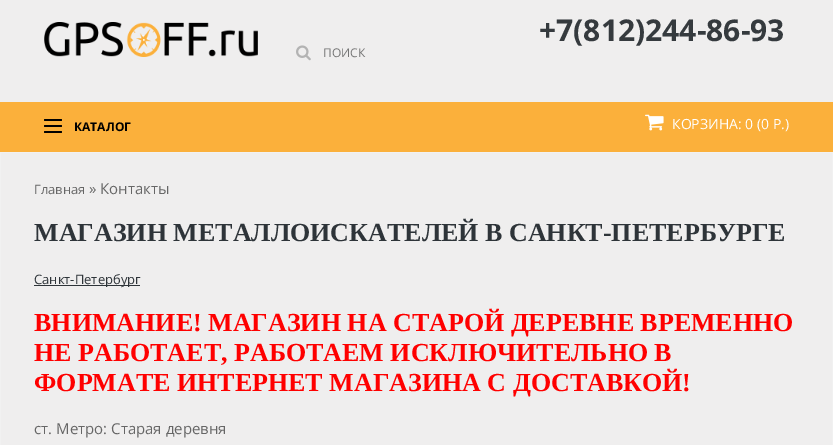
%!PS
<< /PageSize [833 445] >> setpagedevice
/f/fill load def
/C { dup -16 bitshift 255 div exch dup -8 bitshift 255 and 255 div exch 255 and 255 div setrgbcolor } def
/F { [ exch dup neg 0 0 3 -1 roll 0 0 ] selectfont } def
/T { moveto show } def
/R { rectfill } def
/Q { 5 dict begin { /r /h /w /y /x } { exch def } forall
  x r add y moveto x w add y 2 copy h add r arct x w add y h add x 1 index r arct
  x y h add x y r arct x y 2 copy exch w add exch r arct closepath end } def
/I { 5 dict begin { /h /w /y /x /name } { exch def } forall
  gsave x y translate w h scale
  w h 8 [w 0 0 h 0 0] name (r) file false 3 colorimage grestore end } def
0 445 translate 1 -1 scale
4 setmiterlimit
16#EFEEEE C
0 0 833 445 R
(1.rgb) 44 22 214 35 I
(2.rgb) 296 45 15 16 I
/OpenSans-Regular 12 F
16#757575 C
(ПОИСК) 323 57 T
/OpenSans-Bold 30 F
16#353A3E C
(+7\(812\)244-86-93) 539 41 T
16#FBB03B C
0 102 833 50 R
16#000000 C
44 119 18 2 1 Q f
44 125 18 2 1 Q f
/OpenSans-Bold 12 F
(КАТАЛОГ) 74 131 T
44 131 18 2 1 Q f
(3.rgb) 645 114 19 17 I
/OpenSans-Regular 14 F
16#FFFFFF C
(КОРЗИНА: 0 \(0 Р.\)) 672 129 T
16#F1F1F1 C
.5 152.5 832 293 rectstroke
/OpenSans-Regular 13 F
16#666666 C
(Главная) 34 194 T
/OpenSans-Regular 15 F
(» Контакты) 89 194 T
/LiberationSerif-Bold 26 F
16#2E3439 C
(МАГАЗИН МЕТАЛЛОИСКАТЕЛЕЙ В САНКТ-ПЕТЕРБУРГЕ) 34 241 T
34 285 106 1 R
/OpenSans-Regular 13 F
(Санкт-Петербург) 34 284 T
/LiberationSerif-Bold 26 F
16#FF0000 C
(ВНИМАНИЕ! МАГАЗИН НА СТАРОЙ ДЕРЕВНЕ ВРЕМЕННО) 34 331 T
(НЕ РАБОТАЕТ, РАБОТАЕМ ИСКЛЮЧИТЕЛЬНО В) 34 361 T
(ФОРМАТЕ ИНТЕРНЕТ МАГАЗИНА С ДОСТАВКОЙ!) 34 391 T
/OpenSans-Regular 15 F
16#666666 C
(ст. Метро: Старая деревня) 34 434 T
showpage
